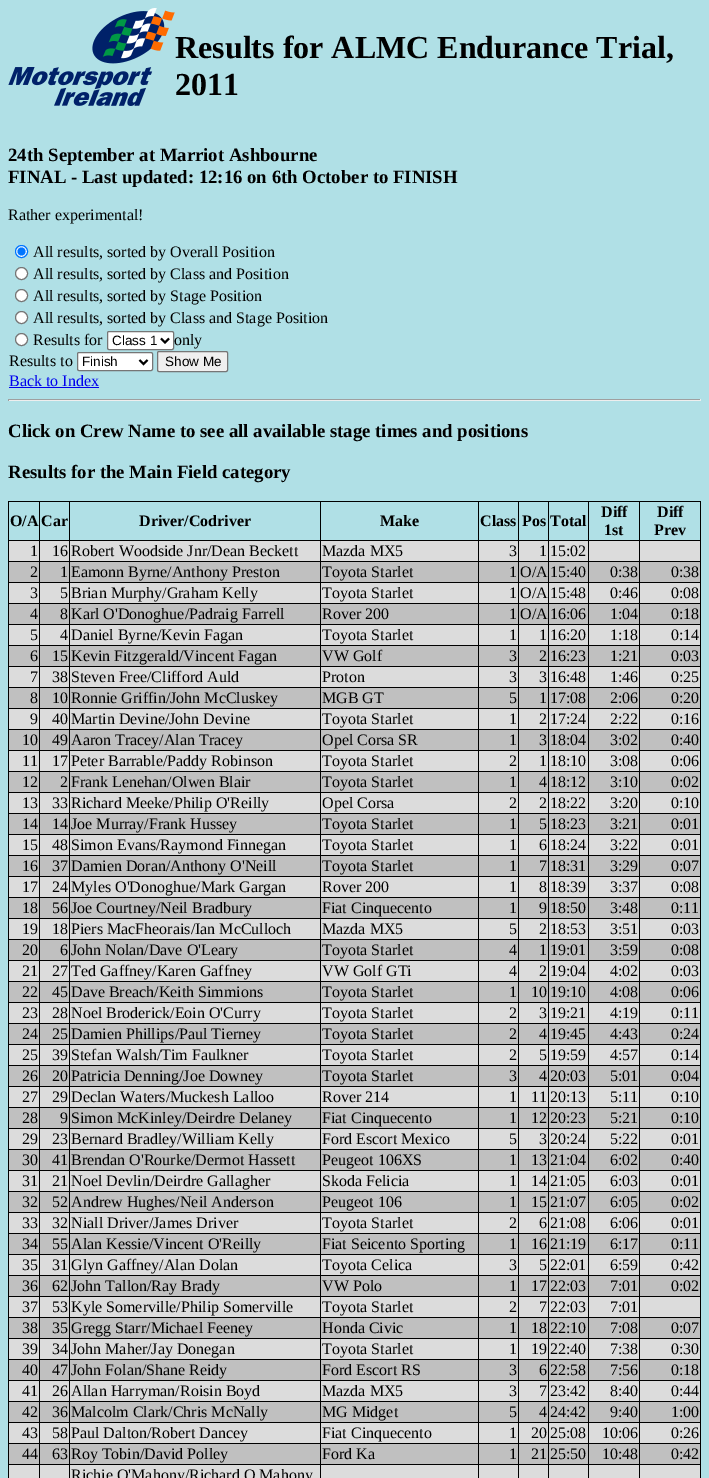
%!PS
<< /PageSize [709 1478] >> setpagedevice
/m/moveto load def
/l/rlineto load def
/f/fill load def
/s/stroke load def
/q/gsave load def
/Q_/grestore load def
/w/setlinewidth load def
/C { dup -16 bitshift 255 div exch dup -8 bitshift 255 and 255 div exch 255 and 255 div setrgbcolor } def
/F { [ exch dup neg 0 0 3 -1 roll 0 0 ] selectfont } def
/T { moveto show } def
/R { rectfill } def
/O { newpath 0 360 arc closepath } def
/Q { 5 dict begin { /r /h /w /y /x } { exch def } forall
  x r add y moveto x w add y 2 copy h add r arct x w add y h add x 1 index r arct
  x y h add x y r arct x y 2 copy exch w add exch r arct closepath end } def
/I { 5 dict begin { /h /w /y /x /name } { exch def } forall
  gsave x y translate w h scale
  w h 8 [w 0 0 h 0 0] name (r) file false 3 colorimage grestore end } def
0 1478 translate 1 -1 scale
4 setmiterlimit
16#B0E0E6 C
0 0 709 1478 R
(1.rgb) 8 8 167 98 I
/LiberationSerif-Bold 32 F
16#000000 C
(Results for ALMC Endurance Trial,) 175 58 T
(2011) 175 95 T
/LiberationSerif-Bold 18.75 F
(24th September at Marriot Ashbourne) 8 161 T
(FINAL - Last updated: 12:16 on 6th October to FINISH) 8 183 T
/LiberationSerif-Regular 16 F
(Rather experimental!) 8 220 T
16#FFFFFF C
21.5 251.5 6 O q f Q_
16#0075FF C
s
21.5 251.5 4 O f
16#000000 C
(All results, sorted by Overall Position) 33 257 T
16#FFFFFF C
21.5 273.5 6 O q f Q_
16#767676 C
s
16#000000 C
(All results, sorted by Class and Position) 33 279 T
16#FFFFFF C
21.5 295.5 6 O q f Q_
16#767676 C
s
16#000000 C
(All results, sorted by Stage Position) 33 301 T
16#FFFFFF C
21.5 317.5 6 O q f Q_
16#767676 C
s
16#000000 C
(All results, sorted by Class and Stage Position) 33 323 T
16#FFFFFF C
21.5 339.5 6 O q f Q_
16#767676 C
s
16#000000 C
(Results for) 33 345 T
16#FFFFFF C
107.5 331.5 66 18 1.5 Q q f Q_
16#767676 C
s
16#000000 C
2 w
161 338.5 m 4 4 l 4 -4 l s
/LiberationSans-Regular 13.5 F
(Class 1) 112 345 T
/LiberationSerif-Regular 16 F
(only) 174 345 T
(Results to) 9 366 T
16#FFFFFF C
77.5 352.5 75 18 1.5 Q q f Q_
16#767676 C
1 w
s
16#000000 C
2 w
139.5 360 m 4 4 l 4 -4 l s
/LiberationSans-Regular 13.5 F
(Finish) 82 366 T
16#EFEFEF C
157.5 351.5 70 20 1.5 Q q f Q_
16#767676 C
1 w
s
16#000000 C
(Show Me) 165 366 T
/LiberationSerif-Regular 16 F
16#0000EE C
(Back to Index) 9 386 T
9 387 90 1 R
16#9F9F9F C
8 399 693 1 R
16#EEEEEE C
700 399 1 2 R
8 400 693 1 R
16#9F9F9F C
8 399 1 2 R
/LiberationSerif-Bold 18.75 F
16#000000 C
(Click on Crew Name to see all available stage times and positions) 8 437 T
(Results for the Main Field category) 8 478 T
8 501 693 1 R
700 501 1 977 R
8 501 1 977 R
/LiberationSerif-Bold 16 F
(O/A) 10 526 T
639 540 62 1 R
16#DCDCDC C
9 541 691 20 R
16#000000 C
639 561 62 1 R
16#C0C0C0 C
9 562 691 20 R
16#000000 C
639 582 62 1 R
16#DCDCDC C
9 583 691 20 R
16#000000 C
639 603 62 1 R
16#C0C0C0 C
9 604 691 20 R
16#000000 C
639 624 62 1 R
16#DCDCDC C
9 625 691 20 R
16#000000 C
639 645 62 1 R
16#C0C0C0 C
9 646 691 20 R
16#000000 C
639 666 62 1 R
16#DCDCDC C
9 667 691 20 R
16#000000 C
639 687 62 1 R
16#C0C0C0 C
9 688 691 20 R
16#000000 C
639 708 62 1 R
16#DCDCDC C
9 709 691 20 R
16#000000 C
639 729 62 1 R
16#C0C0C0 C
9 730 691 20 R
16#000000 C
639 750 62 1 R
16#DCDCDC C
9 751 691 20 R
16#000000 C
639 771 62 1 R
16#C0C0C0 C
9 772 691 20 R
16#000000 C
639 792 62 1 R
16#DCDCDC C
9 793 691 20 R
16#000000 C
639 813 62 1 R
16#C0C0C0 C
9 814 691 20 R
16#000000 C
639 834 62 1 R
16#DCDCDC C
9 835 691 20 R
16#000000 C
639 855 62 1 R
16#C0C0C0 C
9 856 691 20 R
16#000000 C
639 876 62 1 R
16#DCDCDC C
9 877 691 20 R
16#000000 C
639 897 62 1 R
16#C0C0C0 C
9 898 691 20 R
16#000000 C
639 918 62 1 R
16#DCDCDC C
9 919 691 20 R
16#000000 C
639 939 62 1 R
16#C0C0C0 C
9 940 691 20 R
16#000000 C
639 960 62 1 R
16#DCDCDC C
9 961 691 20 R
16#000000 C
639 981 62 1 R
16#C0C0C0 C
9 982 691 20 R
16#000000 C
639 1002 62 1 R
16#DCDCDC C
9 1003 691 20 R
16#000000 C
639 1023 62 1 R
16#C0C0C0 C
9 1024 691 20 R
16#000000 C
639 1044 62 1 R
16#DCDCDC C
9 1045 691 20 R
16#000000 C
639 1065 62 1 R
16#C0C0C0 C
9 1066 691 20 R
16#000000 C
639 1086 62 1 R
16#DCDCDC C
9 1087 691 20 R
16#000000 C
639 1107 62 1 R
16#C0C0C0 C
9 1108 691 20 R
16#000000 C
639 1128 62 1 R
16#DCDCDC C
9 1129 691 20 R
16#000000 C
639 1149 62 1 R
16#C0C0C0 C
9 1150 691 20 R
16#000000 C
639 1170 62 1 R
16#DCDCDC C
9 1171 691 20 R
16#000000 C
639 1191 62 1 R
16#C0C0C0 C
9 1192 691 20 R
16#000000 C
639 1212 62 1 R
16#DCDCDC C
9 1213 691 20 R
16#000000 C
639 1233 62 1 R
16#C0C0C0 C
9 1234 691 20 R
16#000000 C
639 1254 62 1 R
16#DCDCDC C
9 1255 691 20 R
16#000000 C
639 1275 62 1 R
16#C0C0C0 C
9 1276 691 20 R
16#000000 C
639 1296 62 1 R
16#DCDCDC C
9 1297 691 20 R
16#000000 C
639 1317 62 1 R
16#C0C0C0 C
9 1318 691 20 R
16#000000 C
639 1338 62 1 R
16#DCDCDC C
9 1339 691 20 R
16#000000 C
639 1359 62 1 R
16#C0C0C0 C
9 1360 691 20 R
16#000000 C
639 1380 62 1 R
16#DCDCDC C
9 1381 691 20 R
16#000000 C
639 1401 62 1 R
16#C0C0C0 C
9 1402 691 20 R
16#000000 C
639 1422 62 1 R
16#DCDCDC C
9 1423 691 20 R
16#000000 C
639 1443 62 1 R
16#C0C0C0 C
9 1444 691 20 R
16#000000 C
639 1464 62 1 R
16#DCDCDC C
9 1465 691 13 R
16#000000 C
639 1464 1 14 R
588 1464 52 1 R
639 1443 1 22 R
588 1443 52 1 R
639 1422 1 22 R
588 1422 52 1 R
639 1401 1 22 R
588 1401 52 1 R
639 1380 1 22 R
588 1380 52 1 R
639 1359 1 22 R
588 1359 52 1 R
639 1338 1 22 R
588 1338 52 1 R
639 1317 1 22 R
588 1317 52 1 R
639 1296 1 22 R
588 1296 52 1 R
639 1275 1 22 R
588 1275 52 1 R
639 1254 1 22 R
588 1254 52 1 R
639 1233 1 22 R
588 1233 52 1 R
639 1212 1 22 R
588 1212 52 1 R
639 1191 1 22 R
588 1191 52 1 R
639 1170 1 22 R
588 1170 52 1 R
639 1149 1 22 R
588 1149 52 1 R
639 1128 1 22 R
588 1128 52 1 R
639 1107 1 22 R
588 1107 52 1 R
639 1086 1 22 R
588 1086 52 1 R
639 1065 1 22 R
588 1065 52 1 R
639 1044 1 22 R
588 1044 52 1 R
639 1023 1 22 R
588 1023 52 1 R
639 1002 1 22 R
588 1002 52 1 R
639 981 1 22 R
588 981 52 1 R
639 960 1 22 R
588 960 52 1 R
639 939 1 22 R
588 939 52 1 R
639 918 1 22 R
588 918 52 1 R
639 897 1 22 R
588 897 52 1 R
639 876 1 22 R
588 876 52 1 R
639 855 1 22 R
588 855 52 1 R
639 834 1 22 R
588 834 52 1 R
639 813 1 22 R
588 813 52 1 R
639 792 1 22 R
588 792 52 1 R
639 771 1 22 R
588 771 52 1 R
639 750 1 22 R
588 750 52 1 R
639 729 1 22 R
588 729 52 1 R
639 708 1 22 R
588 708 52 1 R
639 687 1 22 R
588 687 52 1 R
639 666 1 22 R
588 666 52 1 R
639 645 1 22 R
588 645 52 1 R
639 624 1 22 R
588 624 52 1 R
639 603 1 22 R
588 603 52 1 R
639 582 1 22 R
588 582 52 1 R
639 561 1 22 R
588 561 52 1 R
639 540 1 22 R
588 540 52 1 R
588 1464 1 14 R
548 1464 41 1 R
588 1443 1 22 R
548 1443 41 1 R
588 1422 1 22 R
548 1422 41 1 R
588 1401 1 22 R
548 1401 41 1 R
588 1380 1 22 R
548 1380 41 1 R
588 1359 1 22 R
548 1359 41 1 R
588 1338 1 22 R
548 1338 41 1 R
588 1317 1 22 R
548 1317 41 1 R
588 1296 1 22 R
548 1296 41 1 R
588 1275 1 22 R
548 1275 41 1 R
588 1254 1 22 R
548 1254 41 1 R
588 1233 1 22 R
548 1233 41 1 R
588 1212 1 22 R
548 1212 41 1 R
588 1191 1 22 R
548 1191 41 1 R
588 1170 1 22 R
548 1170 41 1 R
588 1149 1 22 R
548 1149 41 1 R
588 1128 1 22 R
548 1128 41 1 R
588 1107 1 22 R
548 1107 41 1 R
588 1086 1 22 R
548 1086 41 1 R
588 1065 1 22 R
548 1065 41 1 R
588 1044 1 22 R
548 1044 41 1 R
588 1023 1 22 R
548 1023 41 1 R
588 1002 1 22 R
548 1002 41 1 R
588 981 1 22 R
548 981 41 1 R
588 960 1 22 R
548 960 41 1 R
588 939 1 22 R
548 939 41 1 R
588 918 1 22 R
548 918 41 1 R
588 897 1 22 R
548 897 41 1 R
588 876 1 22 R
548 876 41 1 R
588 855 1 22 R
548 855 41 1 R
588 834 1 22 R
548 834 41 1 R
588 813 1 22 R
548 813 41 1 R
588 792 1 22 R
548 792 41 1 R
588 771 1 22 R
548 771 41 1 R
588 750 1 22 R
548 750 41 1 R
588 729 1 22 R
548 729 41 1 R
588 708 1 22 R
548 708 41 1 R
588 687 1 22 R
548 687 41 1 R
588 666 1 22 R
548 666 41 1 R
588 645 1 22 R
548 645 41 1 R
588 624 1 22 R
548 624 41 1 R
588 603 1 22 R
548 603 41 1 R
588 582 1 22 R
548 582 41 1 R
588 561 1 22 R
548 561 41 1 R
588 540 1 22 R
548 540 41 1 R
548 1464 1 14 R
518 1464 31 1 R
548 1443 1 22 R
518 1443 31 1 R
548 1422 1 22 R
518 1422 31 1 R
548 1401 1 22 R
518 1401 31 1 R
548 1380 1 22 R
518 1380 31 1 R
548 1359 1 22 R
518 1359 31 1 R
548 1338 1 22 R
518 1338 31 1 R
548 1317 1 22 R
518 1317 31 1 R
548 1296 1 22 R
518 1296 31 1 R
548 1275 1 22 R
518 1275 31 1 R
548 1254 1 22 R
518 1254 31 1 R
548 1233 1 22 R
518 1233 31 1 R
548 1212 1 22 R
518 1212 31 1 R
548 1191 1 22 R
518 1191 31 1 R
548 1170 1 22 R
518 1170 31 1 R
548 1149 1 22 R
518 1149 31 1 R
548 1128 1 22 R
518 1128 31 1 R
548 1107 1 22 R
518 1107 31 1 R
548 1086 1 22 R
518 1086 31 1 R
548 1065 1 22 R
518 1065 31 1 R
548 1044 1 22 R
518 1044 31 1 R
548 1023 1 22 R
518 1023 31 1 R
548 1002 1 22 R
518 1002 31 1 R
548 981 1 22 R
518 981 31 1 R
548 960 1 22 R
518 960 31 1 R
548 939 1 22 R
518 939 31 1 R
548 918 1 22 R
518 918 31 1 R
548 897 1 22 R
518 897 31 1 R
548 876 1 22 R
518 876 31 1 R
548 855 1 22 R
518 855 31 1 R
548 834 1 22 R
518 834 31 1 R
548 813 1 22 R
518 813 31 1 R
548 792 1 22 R
518 792 31 1 R
548 771 1 22 R
518 771 31 1 R
548 750 1 22 R
518 750 31 1 R
548 729 1 22 R
518 729 31 1 R
548 708 1 22 R
518 708 31 1 R
548 687 1 22 R
518 687 31 1 R
548 666 1 22 R
518 666 31 1 R
548 645 1 22 R
518 645 31 1 R
548 624 1 22 R
518 624 31 1 R
548 603 1 22 R
518 603 31 1 R
548 582 1 22 R
518 582 31 1 R
548 561 1 22 R
518 561 31 1 R
548 540 1 22 R
518 540 31 1 R
518 1464 1 14 R
478 1464 41 1 R
518 1443 1 22 R
478 1443 41 1 R
518 1422 1 22 R
478 1422 41 1 R
518 1401 1 22 R
478 1401 41 1 R
518 1380 1 22 R
478 1380 41 1 R
518 1359 1 22 R
478 1359 41 1 R
518 1338 1 22 R
478 1338 41 1 R
518 1317 1 22 R
478 1317 41 1 R
518 1296 1 22 R
478 1296 41 1 R
518 1275 1 22 R
478 1275 41 1 R
518 1254 1 22 R
478 1254 41 1 R
518 1233 1 22 R
478 1233 41 1 R
518 1212 1 22 R
478 1212 41 1 R
518 1191 1 22 R
478 1191 41 1 R
518 1170 1 22 R
478 1170 41 1 R
518 1149 1 22 R
478 1149 41 1 R
518 1128 1 22 R
478 1128 41 1 R
518 1107 1 22 R
478 1107 41 1 R
518 1086 1 22 R
478 1086 41 1 R
518 1065 1 22 R
478 1065 41 1 R
518 1044 1 22 R
478 1044 41 1 R
518 1023 1 22 R
478 1023 41 1 R
518 1002 1 22 R
478 1002 41 1 R
518 981 1 22 R
478 981 41 1 R
518 960 1 22 R
478 960 41 1 R
518 939 1 22 R
478 939 41 1 R
518 918 1 22 R
478 918 41 1 R
518 897 1 22 R
478 897 41 1 R
518 876 1 22 R
478 876 41 1 R
518 855 1 22 R
478 855 41 1 R
518 834 1 22 R
478 834 41 1 R
518 813 1 22 R
478 813 41 1 R
518 792 1 22 R
478 792 41 1 R
518 771 1 22 R
478 771 41 1 R
518 750 1 22 R
478 750 41 1 R
518 729 1 22 R
478 729 41 1 R
518 708 1 22 R
478 708 41 1 R
518 687 1 22 R
478 687 41 1 R
518 666 1 22 R
478 666 41 1 R
518 645 1 22 R
478 645 41 1 R
518 624 1 22 R
478 624 41 1 R
518 603 1 22 R
478 603 41 1 R
518 582 1 22 R
478 582 41 1 R
518 561 1 22 R
478 561 41 1 R
518 540 1 22 R
478 540 41 1 R
478 1464 1 14 R
320 1464 159 1 R
478 1443 1 22 R
320 1443 159 1 R
478 1422 1 22 R
320 1422 159 1 R
478 1401 1 22 R
320 1401 159 1 R
478 1380 1 22 R
320 1380 159 1 R
478 1359 1 22 R
320 1359 159 1 R
478 1338 1 22 R
320 1338 159 1 R
478 1317 1 22 R
320 1317 159 1 R
478 1296 1 22 R
320 1296 159 1 R
478 1275 1 22 R
320 1275 159 1 R
478 1254 1 22 R
320 1254 159 1 R
478 1233 1 22 R
320 1233 159 1 R
478 1212 1 22 R
320 1212 159 1 R
478 1191 1 22 R
320 1191 159 1 R
478 1170 1 22 R
320 1170 159 1 R
478 1149 1 22 R
320 1149 159 1 R
478 1128 1 22 R
320 1128 159 1 R
478 1107 1 22 R
320 1107 159 1 R
478 1086 1 22 R
320 1086 159 1 R
478 1065 1 22 R
320 1065 159 1 R
478 1044 1 22 R
320 1044 159 1 R
478 1023 1 22 R
320 1023 159 1 R
478 1002 1 22 R
320 1002 159 1 R
478 981 1 22 R
320 981 159 1 R
478 960 1 22 R
320 960 159 1 R
478 939 1 22 R
320 939 159 1 R
478 918 1 22 R
320 918 159 1 R
478 897 1 22 R
320 897 159 1 R
478 876 1 22 R
320 876 159 1 R
478 855 1 22 R
320 855 159 1 R
478 834 1 22 R
320 834 159 1 R
478 813 1 22 R
320 813 159 1 R
478 792 1 22 R
320 792 159 1 R
478 771 1 22 R
320 771 159 1 R
478 750 1 22 R
320 750 159 1 R
478 729 1 22 R
320 729 159 1 R
478 708 1 22 R
320 708 159 1 R
478 687 1 22 R
320 687 159 1 R
478 666 1 22 R
320 666 159 1 R
478 645 1 22 R
320 645 159 1 R
478 624 1 22 R
320 624 159 1 R
478 603 1 22 R
320 603 159 1 R
478 582 1 22 R
320 582 159 1 R
478 561 1 22 R
320 561 159 1 R
478 540 1 22 R
320 540 159 1 R
320 1464 1 14 R
69 1464 252 1 R
320 1443 1 22 R
69 1443 252 1 R
320 1422 1 22 R
69 1422 252 1 R
320 1401 1 22 R
69 1401 252 1 R
320 1380 1 22 R
69 1380 252 1 R
320 1359 1 22 R
69 1359 252 1 R
320 1338 1 22 R
69 1338 252 1 R
320 1317 1 22 R
69 1317 252 1 R
320 1296 1 22 R
69 1296 252 1 R
320 1275 1 22 R
69 1275 252 1 R
320 1254 1 22 R
69 1254 252 1 R
320 1233 1 22 R
69 1233 252 1 R
320 1212 1 22 R
69 1212 252 1 R
320 1191 1 22 R
69 1191 252 1 R
320 1170 1 22 R
69 1170 252 1 R
320 1149 1 22 R
69 1149 252 1 R
320 1128 1 22 R
69 1128 252 1 R
320 1107 1 22 R
69 1107 252 1 R
320 1086 1 22 R
69 1086 252 1 R
320 1065 1 22 R
69 1065 252 1 R
320 1044 1 22 R
69 1044 252 1 R
320 1023 1 22 R
69 1023 252 1 R
320 1002 1 22 R
69 1002 252 1 R
320 981 1 22 R
69 981 252 1 R
320 960 1 22 R
69 960 252 1 R
320 939 1 22 R
69 939 252 1 R
320 918 1 22 R
69 918 252 1 R
320 897 1 22 R
69 897 252 1 R
320 876 1 22 R
69 876 252 1 R
320 855 1 22 R
69 855 252 1 R
320 834 1 22 R
69 834 252 1 R
320 813 1 22 R
69 813 252 1 R
320 792 1 22 R
69 792 252 1 R
320 771 1 22 R
69 771 252 1 R
320 750 1 22 R
69 750 252 1 R
320 729 1 22 R
69 729 252 1 R
320 708 1 22 R
69 708 252 1 R
320 687 1 22 R
69 687 252 1 R
320 666 1 22 R
69 666 252 1 R
320 645 1 22 R
69 645 252 1 R
320 624 1 22 R
69 624 252 1 R
320 603 1 22 R
69 603 252 1 R
320 582 1 22 R
69 582 252 1 R
320 561 1 22 R
69 561 252 1 R
320 540 1 22 R
69 540 252 1 R
69 1464 1 14 R
39 1464 31 1 R
69 1443 1 22 R
39 1443 31 1 R
69 1422 1 22 R
39 1422 31 1 R
69 1401 1 22 R
39 1401 31 1 R
69 1380 1 22 R
39 1380 31 1 R
69 1359 1 22 R
39 1359 31 1 R
69 1338 1 22 R
39 1338 31 1 R
69 1317 1 22 R
39 1317 31 1 R
69 1296 1 22 R
39 1296 31 1 R
69 1275 1 22 R
39 1275 31 1 R
69 1254 1 22 R
39 1254 31 1 R
69 1233 1 22 R
39 1233 31 1 R
69 1212 1 22 R
39 1212 31 1 R
69 1191 1 22 R
39 1191 31 1 R
69 1170 1 22 R
39 1170 31 1 R
69 1149 1 22 R
39 1149 31 1 R
69 1128 1 22 R
39 1128 31 1 R
69 1107 1 22 R
39 1107 31 1 R
69 1086 1 22 R
39 1086 31 1 R
69 1065 1 22 R
39 1065 31 1 R
69 1044 1 22 R
39 1044 31 1 R
69 1023 1 22 R
39 1023 31 1 R
69 1002 1 22 R
39 1002 31 1 R
69 981 1 22 R
39 981 31 1 R
69 960 1 22 R
39 960 31 1 R
69 939 1 22 R
39 939 31 1 R
69 918 1 22 R
39 918 31 1 R
69 897 1 22 R
39 897 31 1 R
69 876 1 22 R
39 876 31 1 R
69 855 1 22 R
39 855 31 1 R
69 834 1 22 R
39 834 31 1 R
69 813 1 22 R
39 813 31 1 R
69 792 1 22 R
39 792 31 1 R
69 771 1 22 R
39 771 31 1 R
69 750 1 22 R
39 750 31 1 R
69 729 1 22 R
39 729 31 1 R
69 708 1 22 R
39 708 31 1 R
69 687 1 22 R
39 687 31 1 R
69 666 1 22 R
39 666 31 1 R
69 645 1 22 R
39 645 31 1 R
69 624 1 22 R
39 624 31 1 R
69 603 1 22 R
39 603 31 1 R
69 582 1 22 R
39 582 31 1 R
69 561 1 22 R
39 561 31 1 R
69 540 1 22 R
39 540 31 1 R
39 1464 1 14 R
8 1464 32 1 R
39 1443 1 22 R
8 1443 32 1 R
39 1422 1 22 R
8 1422 32 1 R
39 1401 1 22 R
8 1401 32 1 R
39 1380 1 22 R
8 1380 32 1 R
39 1359 1 22 R
8 1359 32 1 R
39 1338 1 22 R
8 1338 32 1 R
39 1317 1 22 R
8 1317 32 1 R
39 1296 1 22 R
8 1296 32 1 R
39 1275 1 22 R
8 1275 32 1 R
39 1254 1 22 R
8 1254 32 1 R
39 1233 1 22 R
8 1233 32 1 R
39 1212 1 22 R
8 1212 32 1 R
39 1191 1 22 R
8 1191 32 1 R
39 1170 1 22 R
8 1170 32 1 R
39 1149 1 22 R
8 1149 32 1 R
39 1128 1 22 R
8 1128 32 1 R
39 1107 1 22 R
8 1107 32 1 R
39 1086 1 22 R
8 1086 32 1 R
39 1065 1 22 R
8 1065 32 1 R
39 1044 1 22 R
8 1044 32 1 R
39 1023 1 22 R
8 1023 32 1 R
39 1002 1 22 R
8 1002 32 1 R
39 981 1 22 R
8 981 32 1 R
39 960 1 22 R
8 960 32 1 R
39 939 1 22 R
8 939 32 1 R
39 918 1 22 R
8 918 32 1 R
39 897 1 22 R
8 897 32 1 R
39 876 1 22 R
8 876 32 1 R
39 855 1 22 R
8 855 32 1 R
39 834 1 22 R
8 834 32 1 R
39 813 1 22 R
8 813 32 1 R
39 792 1 22 R
8 792 32 1 R
39 771 1 22 R
8 771 32 1 R
39 750 1 22 R
8 750 32 1 R
39 729 1 22 R
8 729 32 1 R
39 708 1 22 R
8 708 32 1 R
39 687 1 22 R
8 687 32 1 R
39 666 1 22 R
8 666 32 1 R
39 645 1 22 R
8 645 32 1 R
39 624 1 22 R
8 624 32 1 R
39 603 1 22 R
8 603 32 1 R
39 582 1 22 R
8 582 32 1 R
39 561 1 22 R
8 561 32 1 R
39 540 1 22 R
8 540 32 1 R
39 501 1 40 R
(Car) 41 526 T
69 501 1 40 R
(Driver/Codriver) 139 526 T
320 501 1 40 R
(Make) 380 526 T
478 501 1 40 R
(Class) 480 526 T
518 501 1 40 R
(Pos) 522 526 T
548 501 1 40 R
(Total) 550 526 T
588 501 1 40 R
(Diff) 601 517 T
(1st) 604 535 T
639 501 1 40 R
(Diff) 657 517 T
(Prev) 654 535 T
/LiberationSerif-Regular 16 F
(1) 30 556 T
(16) 52 556 T
(Robert Woodside Jnr/Dean Beckett) 71 556 T
(Mazda MX5) 322 556 T
(3) 509 556 T
(1) 539 556 T
(15:02) 550 556 T
(2) 30 577 T
(1) 60 577 T
(Eamonn Byrne/Anthony Preston) 71 577 T
(Toyota Starlet) 322 577 T
(1) 509 577 T
(O/A) 520 577 T
(15:40) 550 577 T
(0:38) 610 577 T
(0:38) 671 577 T
(3) 30 598 T
(5) 60 598 T
(Brian Murphy/Graham Kelly) 71 598 T
(Toyota Starlet) 322 598 T
(1) 509 598 T
(O/A) 520 598 T
(15:48) 550 598 T
(0:46) 610 598 T
(0:08) 671 598 T
(4) 30 619 T
(8) 60 619 T
(Karl O'Donoghue/Padraig Farrell) 71 619 T
(Rover 200) 322 619 T
(1) 509 619 T
(O/A) 520 619 T
(16:06) 550 619 T
(1:04) 610 619 T
(0:18) 671 619 T
(5) 30 640 T
(4) 60 640 T
(Daniel Byrne/Kevin Fagan) 71 640 T
(Toyota Starlet) 322 640 T
(1) 509 640 T
(1) 539 640 T
(16:20) 550 640 T
(1:18) 610 640 T
(0:14) 671 640 T
(6) 30 661 T
(15) 52 661 T
(Kevin Fitzgerald/Vincent Fagan) 71 661 T
(VW Golf) 322 661 T
(3) 509 661 T
(2) 539 661 T
(16:23) 550 661 T
(1:21) 610 661 T
(0:03) 671 661 T
(7) 30 682 T
(38) 52 682 T
(Steven Free/Clifford Auld) 71 682 T
(Proton) 322 682 T
(3) 509 682 T
(3) 539 682 T
(16:48) 550 682 T
(1:46) 610 682 T
(0:25) 671 682 T
(8) 30 703 T
(10) 52 703 T
(Ronnie Griffin/John McCluskey) 71 703 T
(MGB GT) 322 703 T
(5) 509 703 T
(1) 539 703 T
(17:08) 550 703 T
(2:06) 610 703 T
(0:20) 671 703 T
(9) 30 724 T
(40) 52 724 T
(Martin Devine/John Devine) 71 724 T
(Toyota Starlet) 322 724 T
(1) 509 724 T
(2) 539 724 T
(17:24) 550 724 T
(2:22) 610 724 T
(0:16) 671 724 T
(10) 22 745 T
(49) 52 745 T
(Aaron Tracey/Alan Tracey) 71 745 T
(Opel Corsa SR) 322 745 T
(1) 509 745 T
(3) 539 745 T
(18:04) 550 745 T
(3:02) 610 745 T
(0:40) 671 745 T
(11) 22 766 T
(17) 52 766 T
(Peter Barrable/Paddy Robinson) 71 766 T
(Toyota Starlet) 322 766 T
(2) 509 766 T
(1) 539 766 T
(18:10) 550 766 T
(3:08) 610 766 T
(0:06) 671 766 T
(12) 22 787 T
(2) 60 787 T
(Frank Lenehan/Olwen Blair) 71 787 T
(Toyota Starlet) 322 787 T
(1) 509 787 T
(4) 539 787 T
(18:12) 550 787 T
(3:10) 610 787 T
(0:02) 671 787 T
(13) 22 808 T
(33) 52 808 T
(Richard Meeke/Philip O'Reilly) 71 808 T
(Opel Corsa) 322 808 T
(2) 509 808 T
(2) 539 808 T
(18:22) 550 808 T
(3:20) 610 808 T
(0:10) 671 808 T
(14) 22 829 T
(14) 52 829 T
(Joe Murray/Frank Hussey) 71 829 T
(Toyota Starlet) 322 829 T
(1) 509 829 T
(5) 539 829 T
(18:23) 550 829 T
(3:21) 610 829 T
(0:01) 671 829 T
(15) 22 850 T
(48) 52 850 T
(Simon Evans/Raymond Finnegan) 71 850 T
(Toyota Starlet) 322 850 T
(1) 509 850 T
(6) 539 850 T
(18:24) 550 850 T
(3:22) 610 850 T
(0:01) 671 850 T
(16) 22 871 T
(37) 52 871 T
(Damien Doran/Anthony O'Neill) 71 871 T
(Toyota Starlet) 322 871 T
(1) 509 871 T
(7) 539 871 T
(18:31) 550 871 T
(3:29) 610 871 T
(0:07) 671 871 T
(17) 22 892 T
(24) 52 892 T
(Myles O'Donoghue/Mark Gargan) 71 892 T
(Rover 200) 322 892 T
(1) 509 892 T
(8) 539 892 T
(18:39) 550 892 T
(3:37) 610 892 T
(0:08) 671 892 T
(18) 22 913 T
(56) 52 913 T
(Joe Courtney/Neil Bradbury) 71 913 T
(Fiat Cinquecento) 322 913 T
(1) 509 913 T
(9) 539 913 T
(18:50) 550 913 T
(3:48) 610 913 T
(0:11) 671 913 T
(19) 22 934 T
(18) 52 934 T
(Piers MacFheorais/Ian McCulloch) 71 934 T
(Mazda MX5) 322 934 T
(5) 509 934 T
(2) 539 934 T
(18:53) 550 934 T
(3:51) 610 934 T
(0:03) 671 934 T
(20) 22 955 T
(6) 60 955 T
(John Nolan/Dave O'Leary) 71 955 T
(Toyota Starlet) 322 955 T
(4) 509 955 T
(1) 539 955 T
(19:01) 550 955 T
(3:59) 610 955 T
(0:08) 671 955 T
(21) 22 976 T
(27) 52 976 T
(Ted Gaffney/Karen Gaffney) 71 976 T
(VW Golf GTi) 322 976 T
(4) 509 976 T
(2) 539 976 T
(19:04) 550 976 T
(4:02) 610 976 T
(0:03) 671 976 T
(22) 22 997 T
(45) 52 997 T
(Dave Breach/Keith Simmions) 71 997 T
(Toyota Starlet) 322 997 T
(1) 509 997 T
(10) 531 997 T
(19:10) 550 997 T
(4:08) 610 997 T
(0:06) 671 997 T
(23) 22 1018 T
(28) 52 1018 T
(Noel Broderick/Eoin O'Curry) 71 1018 T
(Toyota Starlet) 322 1018 T
(2) 509 1018 T
(3) 539 1018 T
(19:21) 550 1018 T
(4:19) 610 1018 T
(0:11) 671 1018 T
(24) 22 1039 T
(25) 52 1039 T
(Damien Phillips/Paul Tierney) 71 1039 T
(Toyota Starlet) 322 1039 T
(2) 509 1039 T
(4) 539 1039 T
(19:45) 550 1039 T
(4:43) 610 1039 T
(0:24) 671 1039 T
(25) 22 1060 T
(39) 52 1060 T
(Stefan Walsh/Tim Faulkner) 71 1060 T
(Toyota Starlet) 322 1060 T
(2) 509 1060 T
(5) 539 1060 T
(19:59) 550 1060 T
(4:57) 610 1060 T
(0:14) 671 1060 T
(26) 22 1081 T
(20) 52 1081 T
(Patricia Denning/Joe Downey) 71 1081 T
(Toyota Starlet) 322 1081 T
(3) 509 1081 T
(4) 539 1081 T
(20:03) 550 1081 T
(5:01) 610 1081 T
(0:04) 671 1081 T
(27) 22 1102 T
(29) 52 1102 T
(Declan Waters/Muckesh Lalloo) 71 1102 T
(Rover 214) 322 1102 T
(1) 509 1102 T
(11) 531 1102 T
(20:13) 550 1102 T
(5:11) 610 1102 T
(0:10) 671 1102 T
(28) 22 1123 T
(9) 60 1123 T
(Simon McKinley/Deirdre Delaney) 71 1123 T
(Fiat Cinquecento) 322 1123 T
(1) 509 1123 T
(12) 531 1123 T
(20:23) 550 1123 T
(5:21) 610 1123 T
(0:10) 671 1123 T
(29) 22 1144 T
(23) 52 1144 T
(Bernard Bradley/William Kelly) 71 1144 T
(Ford Escort Mexico) 322 1144 T
(5) 509 1144 T
(3) 539 1144 T
(20:24) 550 1144 T
(5:22) 610 1144 T
(0:01) 671 1144 T
(30) 22 1165 T
(41) 52 1165 T
(Brendan O'Rourke/Dermot Hassett) 71 1165 T
(Peugeot 106XS) 322 1165 T
(1) 509 1165 T
(13) 531 1165 T
(21:04) 550 1165 T
(6:02) 610 1165 T
(0:40) 671 1165 T
(31) 22 1186 T
(21) 52 1186 T
(Noel Devlin/Deirdre Gallagher) 71 1186 T
(Skoda Felicia) 322 1186 T
(1) 509 1186 T
(14) 531 1186 T
(21:05) 550 1186 T
(6:03) 610 1186 T
(0:01) 671 1186 T
(32) 22 1207 T
(52) 52 1207 T
(Andrew Hughes/Neil Anderson) 71 1207 T
(Peugeot 106) 322 1207 T
(1) 509 1207 T
(15) 531 1207 T
(21:07) 550 1207 T
(6:05) 610 1207 T
(0:02) 671 1207 T
(33) 22 1228 T
(32) 52 1228 T
(Niall Driver/James Driver) 71 1228 T
(Toyota Starlet) 322 1228 T
(2) 509 1228 T
(6) 539 1228 T
(21:08) 550 1228 T
(6:06) 610 1228 T
(0:01) 671 1228 T
(34) 22 1249 T
(55) 52 1249 T
(Alan Kessie/Vincent O'Reilly) 71 1249 T
(Fiat Seicento Sporting) 322 1249 T
(1) 509 1249 T
(16) 531 1249 T
(21:19) 550 1249 T
(6:17) 610 1249 T
(0:11) 671 1249 T
(35) 22 1270 T
(31) 52 1270 T
(Glyn Gaffney/Alan Dolan) 71 1270 T
(Toyota Celica) 322 1270 T
(3) 509 1270 T
(5) 539 1270 T
(22:01) 550 1270 T
(6:59) 610 1270 T
(0:42) 671 1270 T
(36) 22 1291 T
(62) 52 1291 T
(John Tallon/Ray Brady) 71 1291 T
(VW Polo) 322 1291 T
(1) 509 1291 T
(17) 531 1291 T
(22:03) 550 1291 T
(7:01) 610 1291 T
(0:02) 671 1291 T
(37) 22 1312 T
(53) 52 1312 T
(Kyle Somerville/Philip Somerville) 71 1312 T
(Toyota Starlet) 322 1312 T
(2) 509 1312 T
(7) 539 1312 T
(22:03) 550 1312 T
(7:01) 610 1312 T
(38) 22 1333 T
(35) 52 1333 T
(Gregg Starr/Michael Feeney) 71 1333 T
(Honda Civic) 322 1333 T
(1) 509 1333 T
(18) 531 1333 T
(22:10) 550 1333 T
(7:08) 610 1333 T
(0:07) 671 1333 T
(39) 22 1354 T
(34) 52 1354 T
(John Maher/Jay Donegan) 71 1354 T
(Toyota Starlet) 322 1354 T
(1) 509 1354 T
(19) 531 1354 T
(22:40) 550 1354 T
(7:38) 610 1354 T
(0:30) 671 1354 T
(40) 22 1375 T
(47) 52 1375 T
(John Folan/Shane Reidy) 71 1375 T
(Ford Escort RS) 322 1375 T
(3) 509 1375 T
(6) 539 1375 T
(22:58) 550 1375 T
(7:56) 610 1375 T
(0:18) 671 1375 T
(41) 22 1396 T
(26) 52 1396 T
(Allan Harryman/Roisin Boyd) 71 1396 T
(Mazda MX5) 322 1396 T
(3) 509 1396 T
(7) 539 1396 T
(23:42) 550 1396 T
(8:40) 610 1396 T
(0:44) 671 1396 T
(42) 22 1417 T
(36) 52 1417 T
(Malcolm Clark/Chris McNally) 71 1417 T
(MG Midget) 322 1417 T
(5) 509 1417 T
(4) 539 1417 T
(24:42) 550 1417 T
(9:40) 610 1417 T
(1:00) 671 1417 T
(43) 22 1438 T
(58) 52 1438 T
(Paul Dalton/Robert Dancey) 71 1438 T
(Fiat Cinquecento) 322 1438 T
(1) 509 1438 T
(20) 531 1438 T
(25:08) 550 1438 T
(10:06) 602 1438 T
(0:26) 671 1438 T
(44) 22 1459 T
(63) 52 1459 T
(Roy Tobin/David Polley) 71 1459 T
(Ford Ka) 322 1459 T
(1) 509 1459 T
(21) 531 1459 T
(25:50) 550 1459 T
(10:48) 602 1459 T
(0:42) 671 1459 T
(Richie O'Mahony/Richard O Mahony) 71 1480 T
showpage
